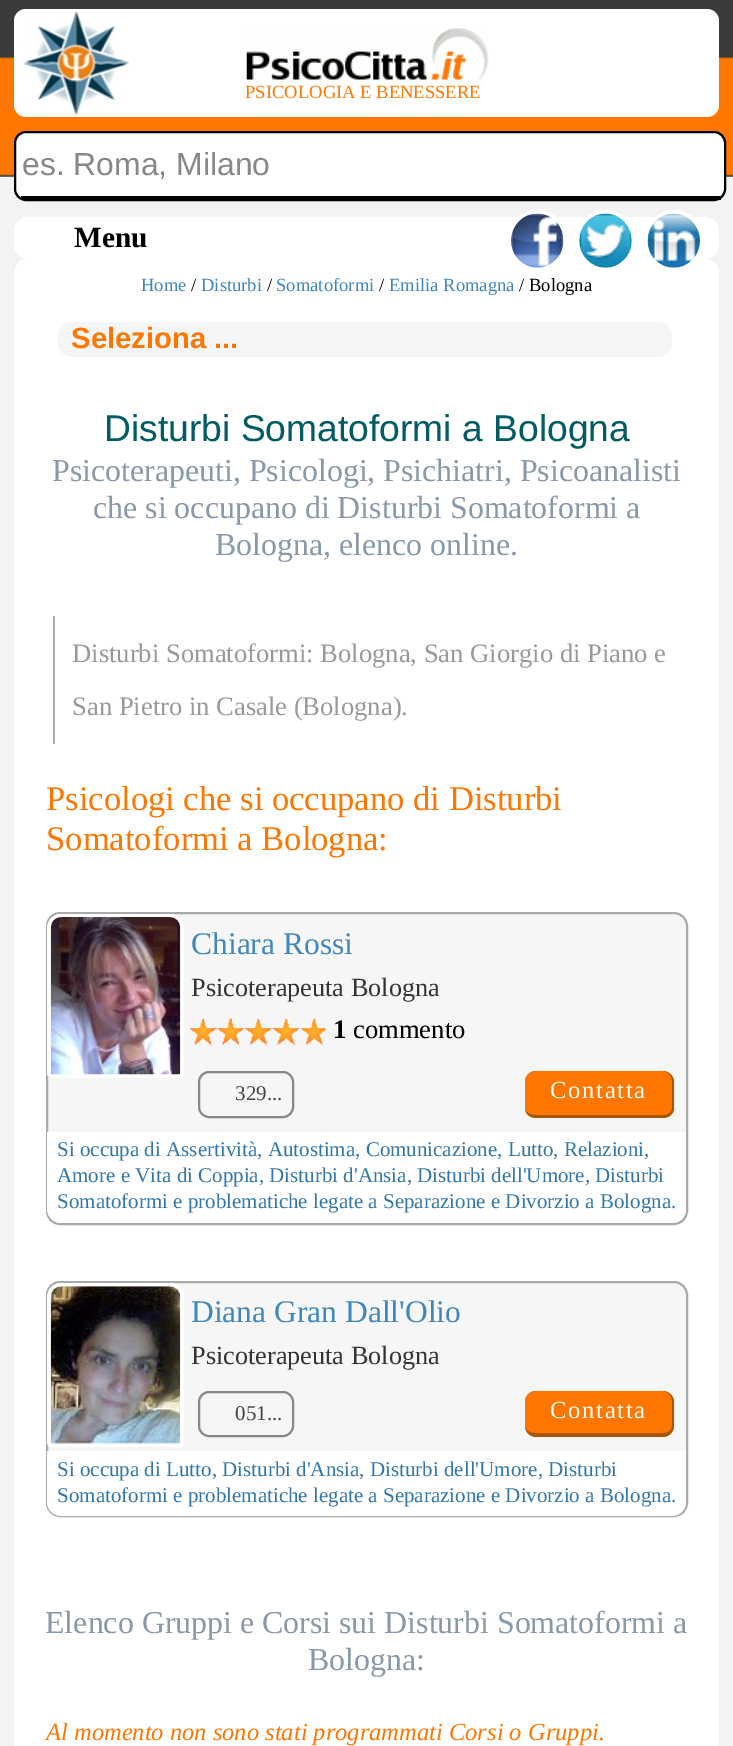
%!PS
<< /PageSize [733 1746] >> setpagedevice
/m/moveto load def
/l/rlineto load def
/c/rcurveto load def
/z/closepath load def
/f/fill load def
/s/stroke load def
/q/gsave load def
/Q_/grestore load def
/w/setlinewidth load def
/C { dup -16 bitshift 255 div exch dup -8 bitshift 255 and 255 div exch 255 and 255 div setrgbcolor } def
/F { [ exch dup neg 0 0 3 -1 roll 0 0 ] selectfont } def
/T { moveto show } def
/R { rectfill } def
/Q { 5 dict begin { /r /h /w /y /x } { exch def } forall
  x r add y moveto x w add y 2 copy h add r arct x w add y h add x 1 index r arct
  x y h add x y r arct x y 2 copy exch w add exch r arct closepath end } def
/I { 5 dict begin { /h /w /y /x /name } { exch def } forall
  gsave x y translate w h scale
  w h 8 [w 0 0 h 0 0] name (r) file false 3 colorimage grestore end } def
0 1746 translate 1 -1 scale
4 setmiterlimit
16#F3F3F3 C
0 0 733 1746 R
(1.rgb) 0 0 733 177 I
16#FFFFFF C
14 9 705 108 12 Q f
(2.rgb) 23 10 107 106 I
(3.rgb) 246 28 243 54 I
/LiberationSerif-Regular 18.6 F
16#FF7700 C
(PSICOLOGIA E BENESSERE) 245 98 T
16#FFFFFF C
26 133 m 688 0 l 6 0 10 5 10 11 c 0 45 l 0 4 -4 7 -10 7 c -688 0 l -6 0 -10 -3 -10 -7 c 0 -45 l 0 -6 4 -11 10 -11 c z f
16#000000 C
2 w
15 132 710 68 11 Q s
21 196 700 4 R
/LiberationSans-Regular 31.9 F
16#888888 C
(es. Roma, Milano) 22 175 T
16#FFFFFF C
14 217 705 42 14 Q f
/LiberationSerif-Bold 29.25 F
16#000000 C
(Menu) 74 247 T
16#FFFFFF C
14 259 705 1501 14 Q f
508 210 59 61 29.5 Q f
(4.rgb) 511 213 53 55 I
576 210 59 61 29.5 Q f
(5.rgb) 579 213 53 55 I
644 210 60 61 30 Q f
(6.rgb) 647 213 53 55 I
/LiberationSerif-Regular 18.6 F
16#4087BD C
(Home) 141 291 T
16#000000 C
(/) 191 291 T
16#4087BD C
(Disturbi) 201 291 T
16#000000 C
(/) 267 291 T
16#4087BD C
(Somatoformi) 276 291 T
16#000000 C
(/) 379 291 T
16#4087BD C
(Emilia Romagna) 389 291 T
16#000000 C
(/ Bologna) 519 291 T
16#F3F5F7 C
58 322 614 35 14 Q f
/LiberationSans-Bold 29.25 F
16#FF7700 C
(Seleziona ...) 71 348 T
/LiberationSans-Regular 37.25 F
16#015C65 C
(Disturbi Somatoformi a Bologna) 104 441 T
/LiberationSerif-Regular 31.9 F
16#8899AA C
(Psicoterapeuti, Psicologi, Psichiatri, Psicoanalisti) 52 481 T
(che si occupano di Disturbi Somatoformi a) 93 518 T
(Bologna, elenco online.) 215 555 T
16#AAAAAA C
53 616 2 128 R
/LiberationSerif-Regular 26.6 F
16#999999 C
(Disturbi Somatoformi: Bologna, San Giorgio di Piano e) 72 662 T
(San Pietro in Casale \(Bologna\).) 72 715 T
/LiberationSerif-Regular 34.6 F
16#FF7700 C
(Psicologi che si occupano di Disturbi) 46 810 T
(Somatoformi a Bologna:) 46 850 T
16#F6F6F6 C
47 913 640 311 13 Q q f Q_
16#AAAAAA C
s
16#FFFFFF C
61 914 m 109 0 l 7.5 0 14 6.5 14 14 c 0 145 l 0 3 -2 5 -5 5 c -127 0 l -3 0 -5 -2 -5 -5 c 0 -145 l 0 -7.5 6.5 -14 14 -14 c z f
(7.rgb) 50 917 131 158 I
/LiberationSerif-Regular 31.5 F
16#4087BD C
(Chiara Rossi) 191 954 T
/LiberationSerif-Regular 26.25 F
16#333333 C
(Psicoterapeuta Bologna) 191 996 T
(8.rgb) 190 1018 136 27 I
/LiberationSerif-Bold 26.6 F
16#000000 C
(1) 333 1038 T
/LiberationSerif-Regular 26.6 F
(commento) 353 1038 T
16#888888 C
199 1072 94 45 10 Q s
/LiberationSerif-Regular 21 F
16#444444 C
(329...) 235 1100 T
16#FF7700 C
536 1071 m 127 0 l 5 0 9 5 9 11 c 0 26 l 0 4 -4 7 -9 7 c -127 0 l -6 0 -11 -3 -11 -7 c 0 -26 l 0 -6 5 -11 11 -11 c z f
16#AA5500 C
536 1071 m 127 0 l 6 0 11 5 11 11 c 0 26 l 0 6 -5 10 -11 10 c -127 0 l -6 0 -11 -4 -11 -10 c 0 -26 l 0 -6 5 -11 11 -11 c z 536 1071 m 127 0 l 5 0 9 5 9 11 c 0 26 l 0 4 -4 7 -9 7 c -127 0 l -6 0 -11 -3 -11 -7 c 0 -26 l 0 -6 5 -11 11 -11 c z eofill
/LiberationSerif-Regular 24.5 F
16#FFFFFF C
550 1098 m 1.75 0 (Contatta) ashow
47 1132 m 639 0 l 0 77 l 0 7.5 -6.5 14 -14 14 c -611 0 l -7.5 0 -14 -6.5 -14 -14 c z f
/LiberationSerif-Regular 21 F
16#3377AA C
(Si occupa di Assertività, Autostima, Comunicazione, Lutto, Relazioni,) 57 1156 T
(Amore e Vita di Coppia, Disturbi d'Ansia, Disturbi dell'Umore, Disturbi) 57 1182 T
(Somatoformi e problematiche legate a Separazione e Divorzio a Bologna.) 57 1208 T
16#F6F6F6 C
47 1282 640 234 13 Q q f Q_
16#AAAAAA C
s
16#FFFFFF C
61 1283 m 109 0 l 7.5 0 14 6.5 14 14 c 0 145 l 0 3 -2 5 -5 5 c -127 0 l -3 0 -5 -2 -5 -5 c 0 -145 l 0 -7.5 6.5 -14 14 -14 c z f
(9.rgb) 50 1286 131 158 I
/LiberationSerif-Regular 31.5 F
16#4087BD C
(Diana Gran Dall'Olio) 191 1322 T
/LiberationSerif-Regular 26.25 F
16#333333 C
(Psicoterapeuta Bologna) 191 1364 T
16#888888 C
199 1392 94 44 10 Q s
/LiberationSerif-Regular 21 F
16#444444 C
(051...) 235 1420 T
16#FF7700 C
536 1391 m 127 0 l 5 0 9 5 9 11 c 0 24 l 0 4 -4 7 -9 7 c -127 0 l -6 0 -11 -3 -11 -7 c 0 -24 l 0 -6 5 -11 11 -11 c z f
16#AA5500 C
536 1391 m 127 0 l 6 0 11 5 11 11 c 0 24 l 0 6 -5 11 -11 11 c -127 0 l -6 0 -11 -5 -11 -11 c 0 -24 l 0 -6 5 -11 11 -11 c z 536 1391 m 127 0 l 5 0 9 5 9 11 c 0 24 l 0 4 -4 7 -9 7 c -127 0 l -6 0 -11 -3 -11 -7 c 0 -24 l 0 -6 5 -11 11 -11 c z eofill
/LiberationSerif-Regular 24.5 F
16#FFFFFF C
550 1418 m 1.75 0 (Contatta) ashow
47 1451 m 639 0 l 0 51 l 0 7.5 -6.5 14 -14 14 c -611 0 l -7.5 0 -14 -6.5 -14 -14 c z f
/LiberationSerif-Regular 21 F
16#3377AA C
(Si occupa di Lutto, Disturbi d'Ansia, Disturbi dell'Umore, Disturbi) 57 1476 T
(Somatoformi e problematiche legate a Separazione e Divorzio a Bologna.) 57 1502 T
/LiberationSerif-Regular 31.9 F
16#8899AA C
(Elenco Gruppi e Corsi sui Disturbi Somatoformi a) 45 1633 T
(Bologna:) 308 1670 T
/LiberationSerif-Italic 24.5 F
16#FF7700 C
(Al momento non sono stati programmati Corsi o Gruppi.) 46 1740 T
showpage
